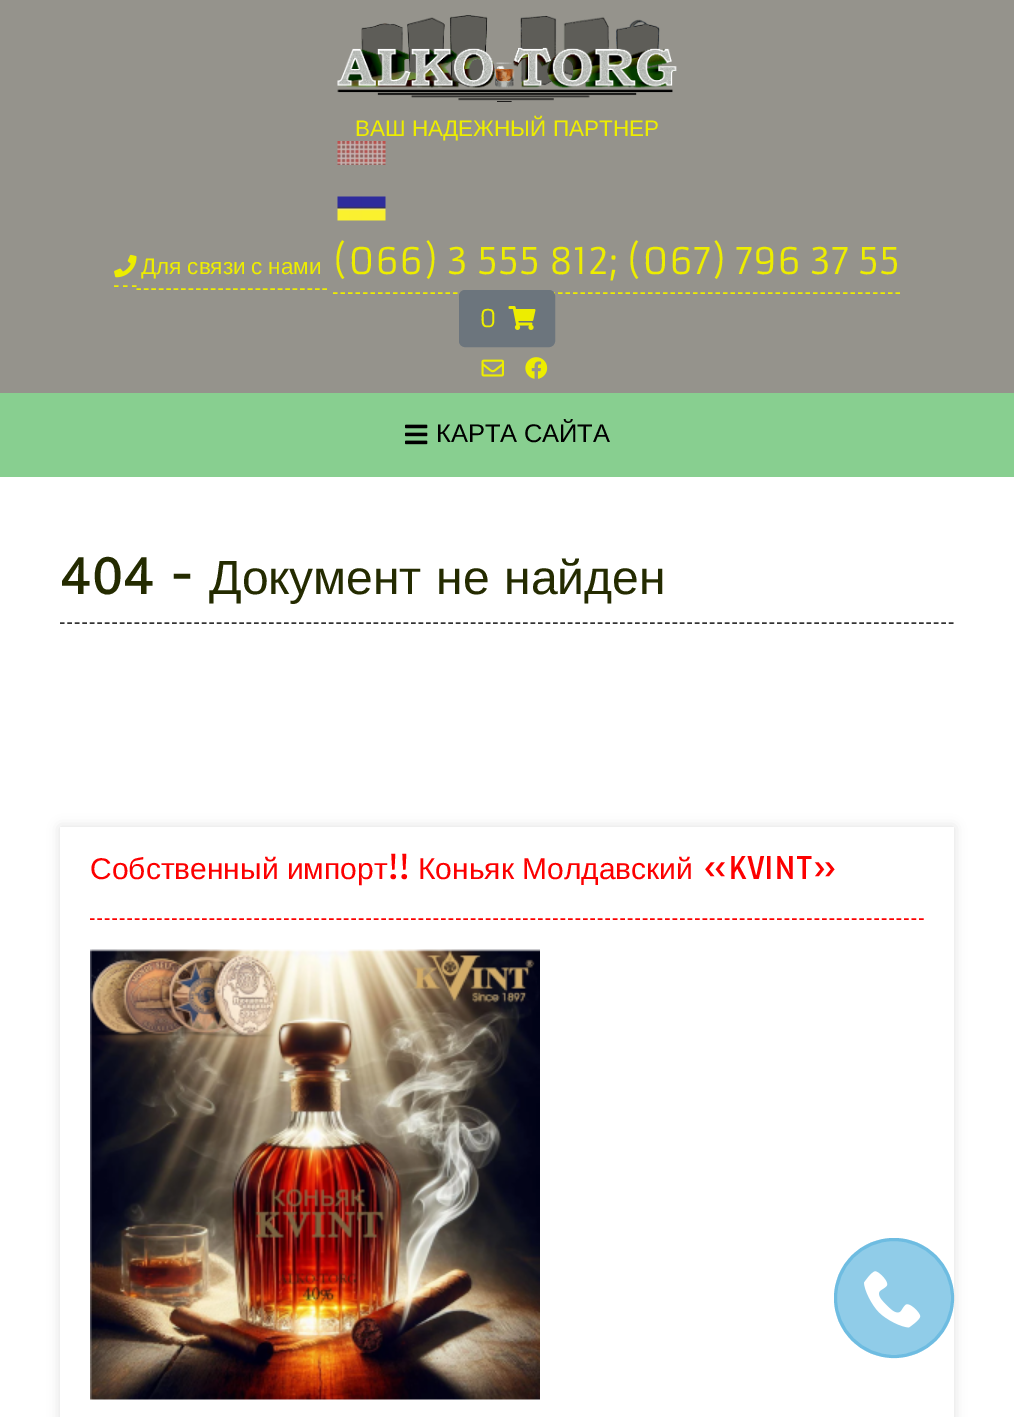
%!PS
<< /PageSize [1014 1417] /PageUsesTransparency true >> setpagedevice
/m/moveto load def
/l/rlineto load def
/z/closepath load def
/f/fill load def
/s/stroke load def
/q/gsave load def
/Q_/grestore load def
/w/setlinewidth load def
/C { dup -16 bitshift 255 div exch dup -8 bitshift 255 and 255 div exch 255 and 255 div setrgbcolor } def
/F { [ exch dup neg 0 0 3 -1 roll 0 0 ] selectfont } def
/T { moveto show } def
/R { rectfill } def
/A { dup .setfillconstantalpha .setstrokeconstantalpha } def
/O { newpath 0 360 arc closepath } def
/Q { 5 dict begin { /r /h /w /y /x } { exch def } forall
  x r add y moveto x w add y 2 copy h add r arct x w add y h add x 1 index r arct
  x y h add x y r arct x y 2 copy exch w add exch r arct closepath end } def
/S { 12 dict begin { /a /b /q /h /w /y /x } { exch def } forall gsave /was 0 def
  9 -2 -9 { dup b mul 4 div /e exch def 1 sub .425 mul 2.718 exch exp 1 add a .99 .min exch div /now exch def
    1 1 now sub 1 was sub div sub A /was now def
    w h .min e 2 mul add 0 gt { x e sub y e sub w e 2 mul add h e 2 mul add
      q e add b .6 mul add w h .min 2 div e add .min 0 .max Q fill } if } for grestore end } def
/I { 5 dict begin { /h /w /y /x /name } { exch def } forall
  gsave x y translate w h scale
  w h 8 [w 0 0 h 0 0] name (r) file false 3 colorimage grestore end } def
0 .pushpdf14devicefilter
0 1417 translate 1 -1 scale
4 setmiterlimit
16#FFFFFF C
0 0 1014 1417 R
16#95938C C
0 0 1014 393 R
(1.rgb) 337 15 340 87 I
/LiberationSans-Regular 22.5 F
16#EDED00 C
(ВАШ НАДЕЖНЫЙ ПАРТНЕР) 355 136 T
(2.rgb) 337 141 49 24 I
(3.rgb) 337 196 49 25 I
1.5 w
114 286 m 4.5 0 l 123 286 m 4.5 0 l 132 286 m 4.5 0 l s
[4.5 2.94] 0 setdash
136.5 289 m 190.5 0 l s
[4.5 3] 0 setdash
333 293 m 567 0 l s
(4.rgb) 114 254 23 24 I
141 274 m -.5 0 32 (Для связи с нами) widthshow
/Armata-Regular 36 F
(\(066\) 3 555 812; \(067\) 796 37 55) 333 274 T
16#6C757D C
460 291 94 55 5 Q q f Q_
2 w
[] 0 setdash
s
/Armata-Regular 24 F
16#EDED00 C
(0) 479 327 T
(5.rgb) 508 306 28 24 I
(6.rgb) 481 359 23 18 I
(7.rgb) 525 357 23 22 I
16#88CF90 C
0 393 1014 84 R
(8.rgb) 405 424 23 21 I
/LiberationSans-Regular 25.5 F
16#000000 C
436 442 m -1 0 32 (КАРТА САЙТА) widthshow
16#333333 C
1.5 w
[4.5 2.97] 0 setdash
60 623 m 894 0 l s
/Tauri-Regular 48 F
16#242B00 C
(404 -) 60 594 T
/LiberationSans-Regular 48 F
(Документ) 209 594 T
(не) 436 594 T
(найден) 504 594 T
q
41 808 m 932 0 l 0 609 l -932 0 l z 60 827 m 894 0 l 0 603 l -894 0 l z eoclip newpath
16#000000 C
60 827 894 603 0 6 .12 S
Q_
16#FC0000 C
90 919 m 834 0 l s
/LiberationSans-Regular 30 F
(Собственный импорт) 90 879 T
/Tauri-Regular 30 F
(!!) 388 879 T
/LiberationSans-Regular 30 F
(Коньяк Молдавский) 418 879 T
/Tauri-Regular 30 F
(«KVINT») 703 879 T
(9.rgb) 90 949 450 451 I
16#90CCE8 C
894 1298 60 O f
0.3 A
16#2098D1 C
3 w
[] 0 setdash
894 1298 58.5 O s
1 A
(10.rgb) 864 1271 57 57 I
.poppdf14devicefilter showpage
